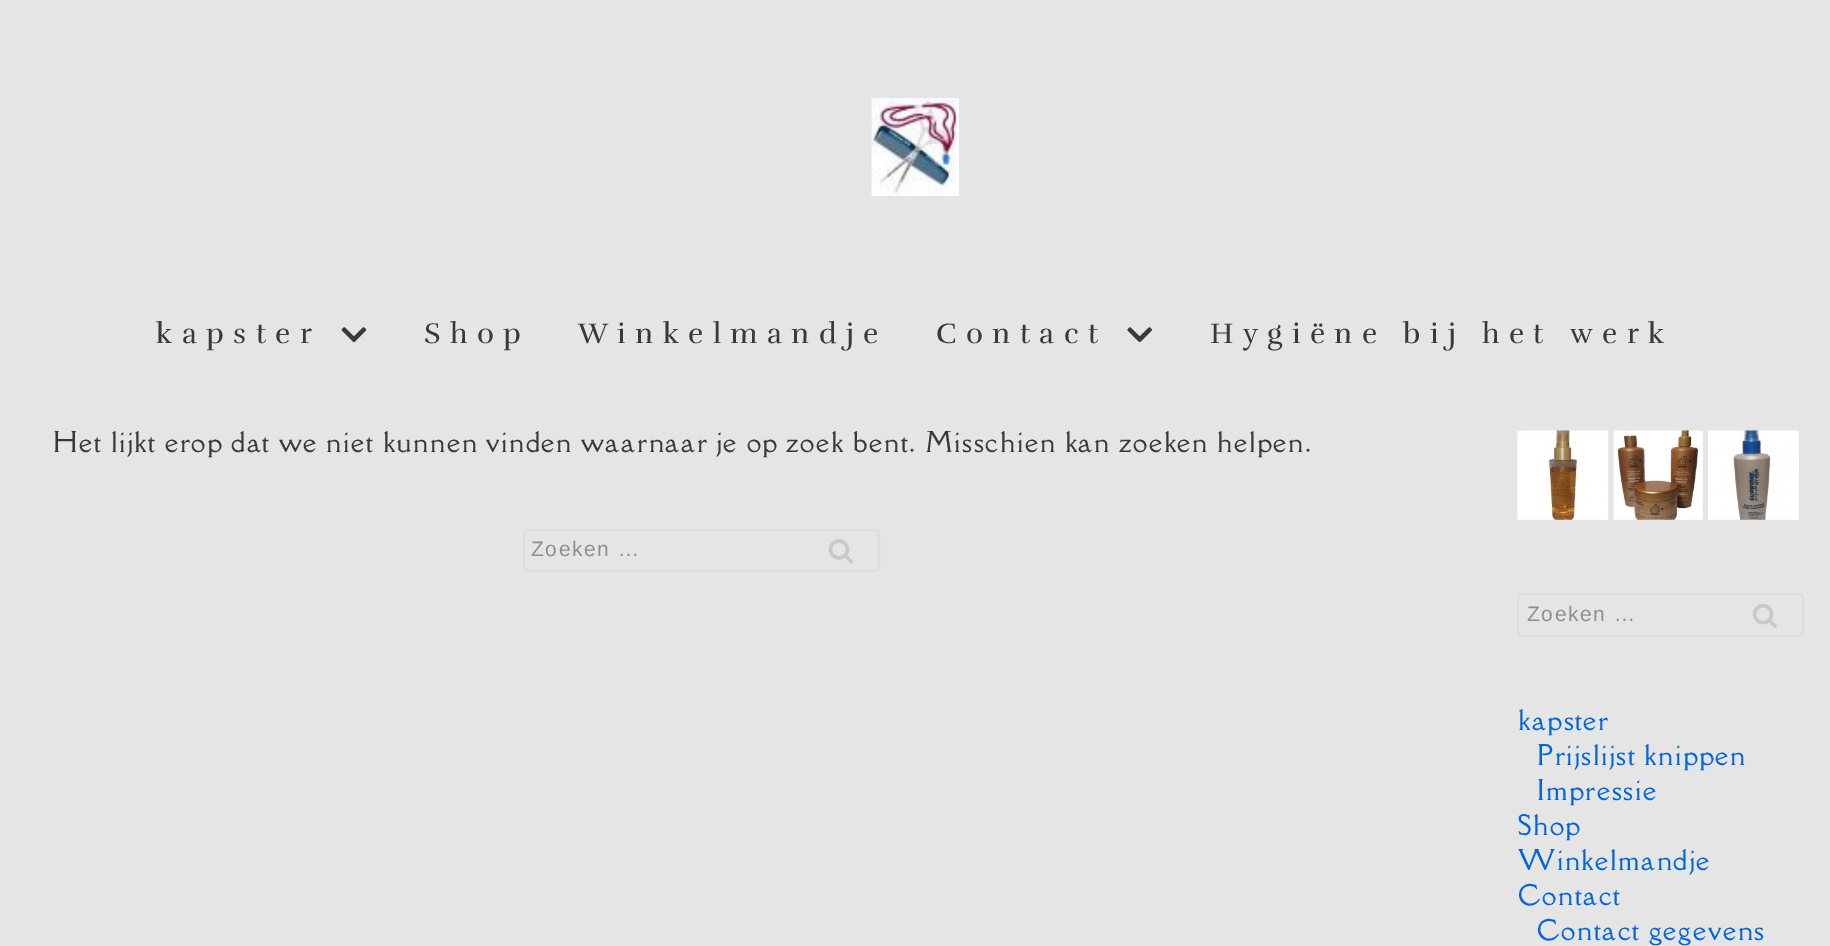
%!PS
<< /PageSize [1830 946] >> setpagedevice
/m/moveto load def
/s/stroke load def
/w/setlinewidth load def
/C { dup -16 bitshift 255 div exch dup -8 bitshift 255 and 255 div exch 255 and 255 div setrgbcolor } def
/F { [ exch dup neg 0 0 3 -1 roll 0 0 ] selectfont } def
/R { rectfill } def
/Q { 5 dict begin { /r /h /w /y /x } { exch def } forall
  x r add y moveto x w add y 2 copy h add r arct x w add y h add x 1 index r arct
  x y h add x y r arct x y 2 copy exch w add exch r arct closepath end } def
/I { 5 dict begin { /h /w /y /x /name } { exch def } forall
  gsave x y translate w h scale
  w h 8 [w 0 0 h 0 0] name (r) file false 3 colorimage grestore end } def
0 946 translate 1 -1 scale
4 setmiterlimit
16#E5E5E5 C
0 0 1830 946 R
(1.rgb) 871 98 88 98 I
/Rufina-Regular 28.9 F
16#393939 C
156 343 m 9.4 0 (kapster) ashow
(2.rgb) 341 327 26 16 I
424 343 m 9.4 0 (Shop) ashow
578 343 m 9.4 0 (Winkelmandje) ashow
936 343 m 9.4 0 (Contact) ashow
(3.rgb) 1127 327 25 16 I
1210 343 m 9.4 0 (Hygiëne bij het werk) ashow
/DellaRespira-Regular 26.25 F
53 452 m 1.57 0 (Het lijkt erop dat we niet kunnen vinden waarnaar je op zoek bent. Misschien kan zoeken helpen.) ashow
16#DDDDDD C
2 w
524 530 355 41 4 Q s
/LiberationSans-Regular 21 F
16#8F8F8F C
531 556 m 1.57 0 (Zoeken …) ashow
(4.rgb) 828 539 25 25 I
(5.rgb) 1517 430 92 90 I
(6.rgb) 1613 430 90 90 I
(7.rgb) 1708 430 91 90 I
16#DDDDDD C
1518 594 285 42 4 Q s
16#8F8F8F C
1527 621 m 1.57 0 (Zoeken …) ashow
(8.rgb) 1752 604 25 24 I
/DellaRespira-Regular 26.25 F
16#0366D6 C
1518 730 m 1.57 0 (kapster) ashow
1537 765 m 1.57 0 (Prijslijst knippen) ashow
1537 800 m 1.57 0 (Impressie) ashow
1518 835 m 1.57 0 (Shop) ashow
1518 870 m 1.57 0 (Winkelmandje) ashow
1518 905 m 1.57 0 (Contact) ashow
1537 940 m 1.57 0 (Contact gegevens) ashow
showpage
